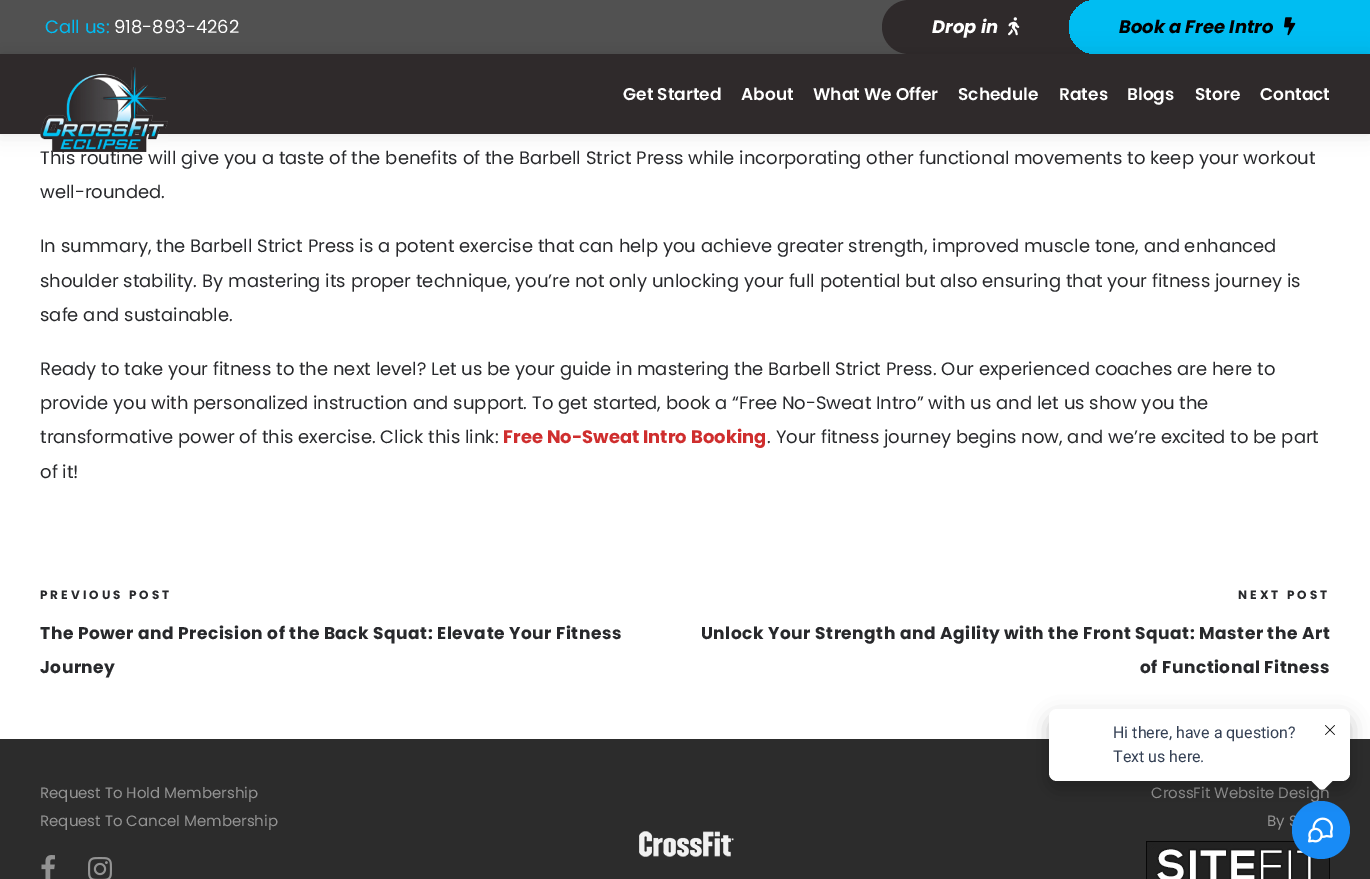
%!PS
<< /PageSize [1370 879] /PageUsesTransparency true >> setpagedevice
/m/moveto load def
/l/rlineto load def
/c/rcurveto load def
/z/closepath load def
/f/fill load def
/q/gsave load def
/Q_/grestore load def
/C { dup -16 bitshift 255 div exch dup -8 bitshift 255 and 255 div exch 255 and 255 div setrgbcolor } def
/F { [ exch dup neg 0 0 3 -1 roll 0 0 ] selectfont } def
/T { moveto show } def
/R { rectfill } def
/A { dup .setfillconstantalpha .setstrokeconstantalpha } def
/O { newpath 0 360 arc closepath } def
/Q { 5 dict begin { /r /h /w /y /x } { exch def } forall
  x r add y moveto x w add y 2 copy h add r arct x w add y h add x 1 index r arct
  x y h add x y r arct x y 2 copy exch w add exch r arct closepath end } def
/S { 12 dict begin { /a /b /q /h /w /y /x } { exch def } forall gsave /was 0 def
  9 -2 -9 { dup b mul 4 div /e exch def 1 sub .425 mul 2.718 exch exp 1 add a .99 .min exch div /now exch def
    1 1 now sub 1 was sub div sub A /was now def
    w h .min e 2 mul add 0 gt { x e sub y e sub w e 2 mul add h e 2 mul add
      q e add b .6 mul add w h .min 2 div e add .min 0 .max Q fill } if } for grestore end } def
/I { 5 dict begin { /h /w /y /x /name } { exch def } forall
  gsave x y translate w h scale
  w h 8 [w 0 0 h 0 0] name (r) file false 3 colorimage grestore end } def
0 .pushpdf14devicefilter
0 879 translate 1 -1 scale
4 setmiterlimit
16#FFFFFF C
0 0 1370 879 R
16#515151 C
0 0 909 54 R
/Poppins-Regular 18 F
16#00BCF3 C
(Call us:) 45 33 T
16#FFFFFF C
(918-893-4262) 114 33 T
16#2F2A2B C
882 0 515 54 27 Q f
/Poppins-BoldItalic 18 F
16#FFFFFF C
(Drop in) 932 33 T
(1.rgb) 1008 17 12 19 I
q 1069 0 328 54 27 Q clip newpath
<< /ShadingType 2 /ColorSpace /DeviceRGB /Coords [-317 27 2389 27] /Extend [true true] /Function << /FunctionType 3 /Domain [0 1] /Functions [<< /FunctionType 2 /Domain [0 1] /C0 [.839 .843 .843] /C1 [1 1 1] /N 1 >> << /FunctionType 2 /Domain [0 1] /C0 [0 .741 .949] /C1 [0 .741 .949] /N 1 >>] /Bounds [.5] /Encode [0 1 0 1] >> >> shfill Q_
16#000000 C
(Book a Free Intro) 1119 33 T
(2.rgb) 1284 17 12 19 I
/Poppins-Regular 18 F
16#28292C C
(This routine will give you a taste of the benefits of the Barbell Strict Press while incorporating other functional movements to keep your workout) 40 164 T
(well-rounded.) 40 198 T
(In summary, the Barbell Strict Press is a potent exercise that can help you achieve greater strength, improved muscle tone, and enhanced) 40 252 T
(shoulder stability. By mastering its proper technique, you’re not only unlocking your full potential but also ensuring that your fitness journey is) 40 287 T
(safe and sustainable.) 40 321 T
(Ready to take your fitness to the next level? Let us be your guide in mastering the Barbell Strict Press. Our experienced coaches are here to) 40 375 T
(provide you with personalized instruction and support. To get started, book a “Free No-Sweat Intro” with us and let us show you the) 40 409 T
(transformative power of this exercise. Click this link:) 40 443 T
/Poppins-Bold 18 F
16#CF2E2E C
(Free No-Sweat Intro Booking) 503 443 T
/Poppins-Regular 18 F
16#28292C C
(. Your fitness journey begins now, and we’re excited to be part) 767 443 T
(of it!) 40 478 T
/Poppins-Bold 12 F
40 599 m 3 0 (PREVIOUS POST) ashow
/Poppins-Bold 17 F
40 639 m .5 0 (The Power and Precision of the Back Squat: Elevate Your Fitness) ashow
40 673 m .5 0 (Journey) ashow
/Poppins-Bold 12 F
1238 599 m 3 0 (NEXT POST) ashow
/Poppins-Bold 17 F
701 639 m .5 0 (Unlock Your Strength and Agility with the Front Squat: Master the Art) ashow
1140 673 m .5 0 (of Functional Fitness) ashow
16#2C2C2C C
0 739 1370 140 R
/Poppins-Regular 15 F
16#939393 C
(Request To Hold Membership) 40 798 T
(Request To Cancel Membership) 40 826 T
(3.rgb) 41 855 14 24 I
(4.rgb) 88 857 24 22 I
(CrossFit Website Design) 1151 798 T
(By S) 1267 826 T
(5.rgb) 1146 841 184 38 I
(6.rgb) 639 831 95 26 I
16#000000 C
0 54 1370 80 0 10 .1 S
16#2F2A2B C
0 54 1370 80 R
(7.rgb) 40 67 128 85 I
/Poppins-SemiBold 17 F
16#FFFFFF C
(Get Started) 623 100 T
(About) 741 100 T
(What We Offer) 813 100 T
(Schedule) 958 100 T
(Rates) 1059 100 T
(Blogs) 1127 100 T
(Store) 1195 100 T
(Contact) 1260 100 T
16#188BF6 C
1321 830 29 O f
(9.rgb) 1308 817 25 26 I
16#000000 C
1049 717 301 72 8 10 .24 S
16#FFFFFF C
1049 709 301 72 8 Q f
/Roboto-Regular 16 F
16#344054 C
(Hi there, have a question?) 1113 738 T
(Text us here.) 1113 762 T
16#FFFFFF C
1325 765.5 m 8.5 8.5 l 1.5 1.5 1.5 4.5 0 6 c -8.5 8.5 l -1.5 1.5 -4.5 1.5 -6 0 c -8.5 -8.5 l -1.5 -1.5 -1.5 -4.5 0 -6 c 8.5 -8.5 l 1.5 -1.5 4.5 -1.5 6 0 c z f
(8.rgb) 1325 725 10 10 I
.poppdf14devicefilter showpage
